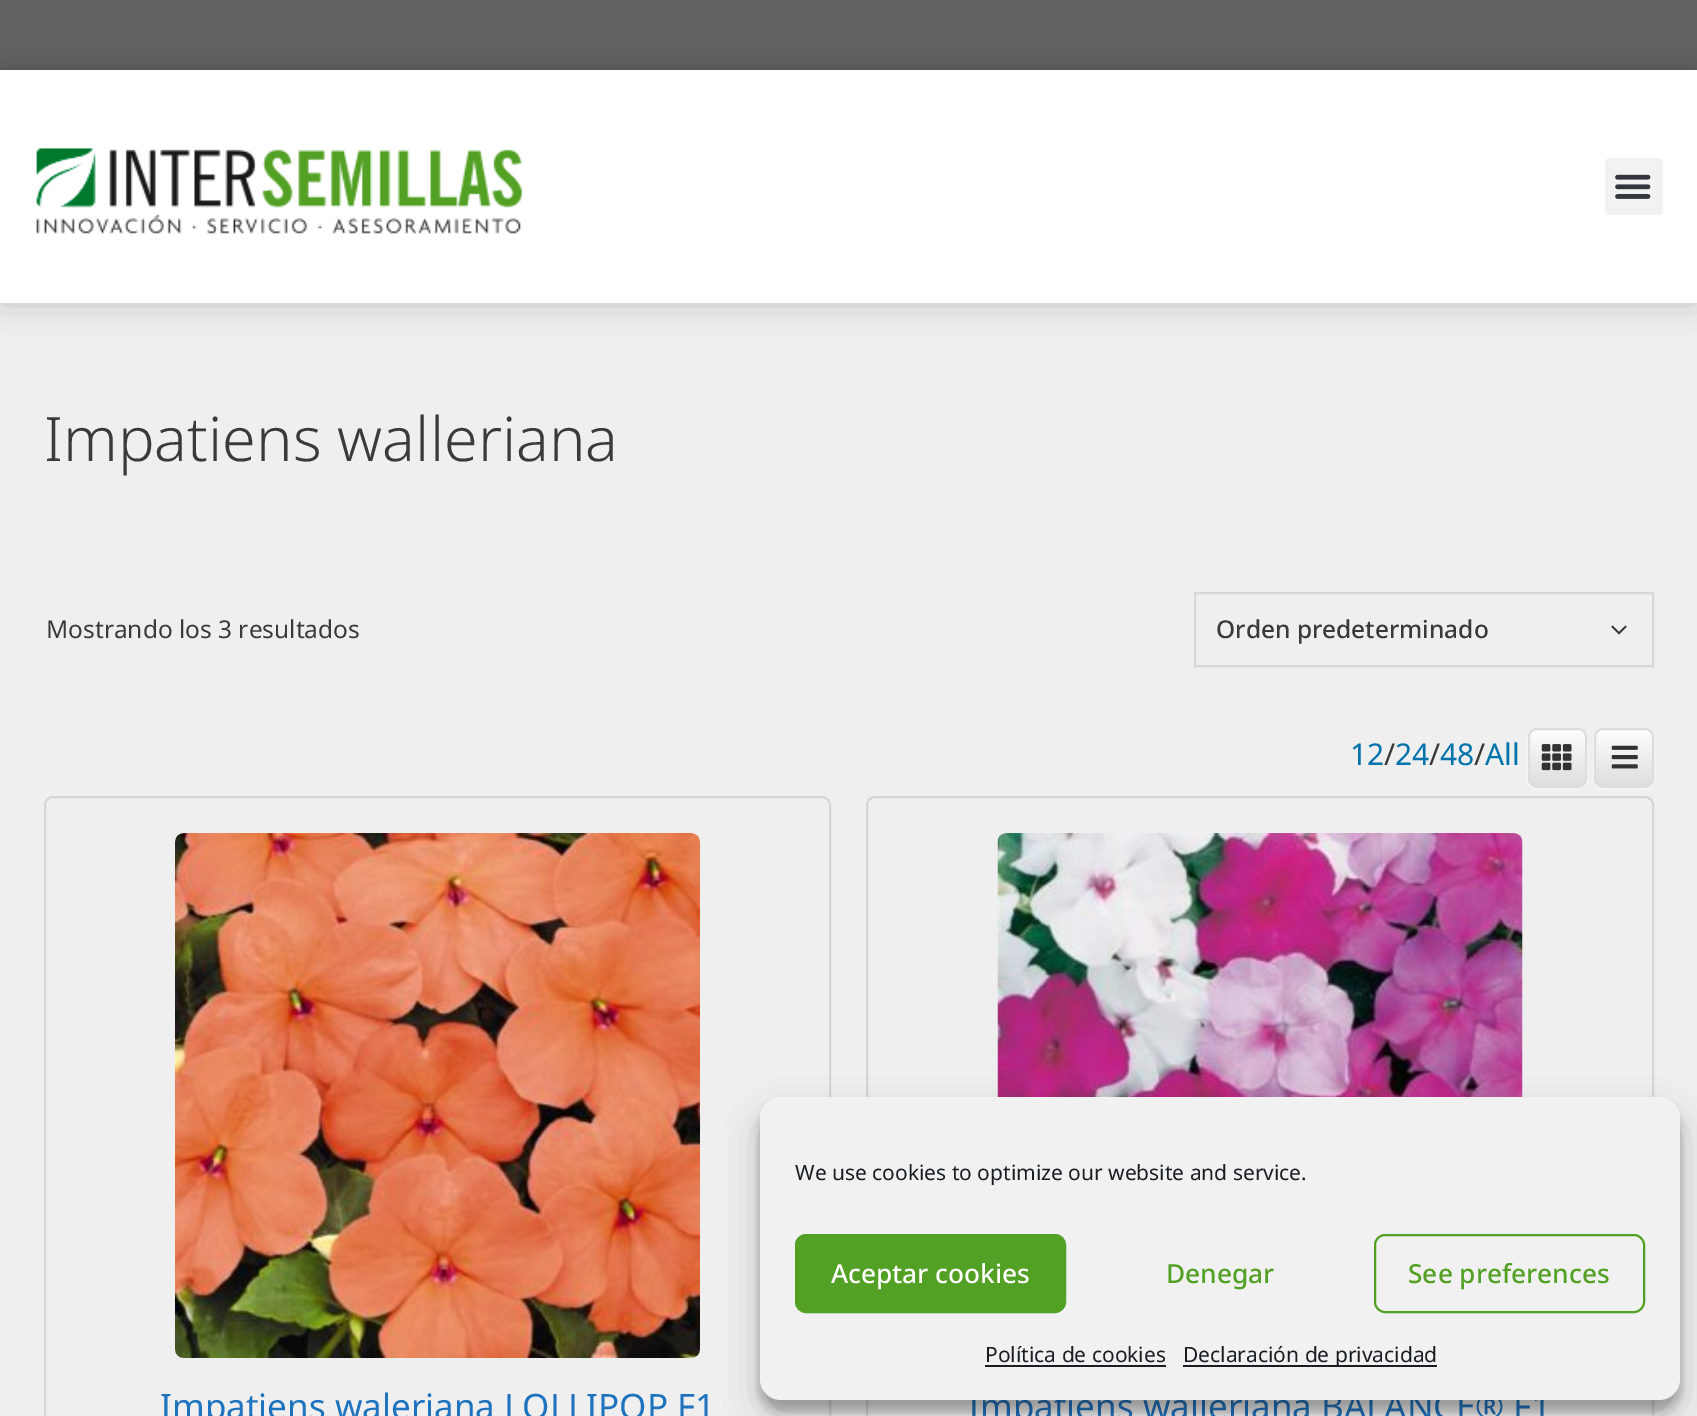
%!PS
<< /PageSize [1697 1416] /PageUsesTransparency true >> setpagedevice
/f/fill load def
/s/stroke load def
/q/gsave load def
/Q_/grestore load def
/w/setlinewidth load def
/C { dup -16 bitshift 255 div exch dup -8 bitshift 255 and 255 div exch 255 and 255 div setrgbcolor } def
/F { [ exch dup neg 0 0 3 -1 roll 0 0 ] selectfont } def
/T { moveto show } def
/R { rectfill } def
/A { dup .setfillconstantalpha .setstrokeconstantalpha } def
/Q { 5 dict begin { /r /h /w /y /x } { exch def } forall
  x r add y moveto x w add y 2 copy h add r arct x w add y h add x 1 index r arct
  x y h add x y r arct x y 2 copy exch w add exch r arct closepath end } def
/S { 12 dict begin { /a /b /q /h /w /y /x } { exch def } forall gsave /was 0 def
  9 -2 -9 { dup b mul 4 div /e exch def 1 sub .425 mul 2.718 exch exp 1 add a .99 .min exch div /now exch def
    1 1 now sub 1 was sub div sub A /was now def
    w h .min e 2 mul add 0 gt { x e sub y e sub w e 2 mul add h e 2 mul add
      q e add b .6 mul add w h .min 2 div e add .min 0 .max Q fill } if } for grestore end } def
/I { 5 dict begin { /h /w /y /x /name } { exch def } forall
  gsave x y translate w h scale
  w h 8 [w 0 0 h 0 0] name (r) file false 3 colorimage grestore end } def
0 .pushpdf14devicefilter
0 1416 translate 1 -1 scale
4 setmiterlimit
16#EFEFEF C
0 0 1697 1416 R
16#636363 C
0 0 1697 70 R
16#000000 C
0 70 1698 233 0 17.5 .18 S
16#FFFFFF C
0 70 1697 233 R
(1.rgb) 36 148 486 86 I
16#F2F2F2 C
1605 158 58 57 5 Q f
(2.rgb) 1615 174 36 25 I
/NotoSans-Light 61.25 F
16#3A3A3A C
(Impatiens walleriana) 44 461 T
/NotoSans-Regular 24.5 F
(Mostrando los 3 resultados) 46 638 T
16#D7D7D7 C
2 w
1195 593 458 73 rectstroke
/NotoSans-Medium 24.5 F
16#3A3A3A C
(Orden predeterminado) 1216 638 T
(3.rgb) 1611 625 16 10 I
/NotoSans-Regular 30 F
16#0073AA C
(12) 1350 765 T
16#3A3A3A C
(/) 1384 765 T
16#0073AA C
(24) 1395 765 T
16#3A3A3A C
(/) 1429 765 T
16#0073AA C
(48) 1440 765 T
16#3A3A3A C
(/) 1474 765 T
16#0073AA C
(All) 1485 765 T
16#FFFFFF C
1528 730 59 59 9 1 1 S
q 1529 729 57 58 8 Q clip newpath
<< /ShadingType 2 /ColorSpace /DeviceRGB /Coords [1558 728 1558 788] /Extend [true true] /Function << /FunctionType 2 /Domain [0 1] /C0 [1 1 1] /C1 [.863 .863 .863] /N 1 >> >> shfill Q_
16#DDDDDD C
1529 729 57 58 8 Q s
(4.rgb) 1541 744 31 27 I
16#FFFFFF C
1594 730 60 59 9 1 1 S
q 1595 729 58 58 8 Q clip newpath
<< /ShadingType 2 /ColorSpace /DeviceRGB /Coords [1624 728 1624 788] /Extend [true true] /Function << /FunctionType 2 /Domain [0 1] /C0 [1 1 1] /C1 [.863 .863 .863] /N 1 >> >> shfill Q_
16#DDDDDD C
1595 729 58 58 8 Q s
(5.rgb) 1611 745 27 24 I
16#D6D6D6 C
45 797 785 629 8 Q s
(6.rgb) 175 833 525 525 I
/NotoSans-Regular 35 F
16#1E73BE C
(Impatiens waleriana LOLLIPOP F1) 160 1419 T
16#D6D6D6 C
867 797 786 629 8 Q s
(7.rgb) 997 833 526 264 I
16#1E73BE C
(Impatiens walleriana BALANCE® F1) 968 1419 T
16#000000 C
760 1108 920 303 21 5 .23 S
760 1115 920 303 21 17.5 .19 S
16#F1F1F1 C
760 1097 920 303 21 Q f
/NotoSans-Regular 21 F
16#191E23 C
(We use cookies to optimize our website and service.) 795 1180 T
16#52A024 C
796 1235 269 77 10 Q q f Q_
s
/NotoSans-Medium 26.25 F
16#FFFFFF C
(Aceptar cookies) 831 1283 T
16#52A024 C
(Denegar) 1166 1283 T
1375 1235 269 77 10 Q s
(See preferences) 1408 1283 T
/NotoSans-Regular 21 F
16#191E23 C
(Política de cookies) 985 1362 T
985 1365 181 2 R
1183 1365 254 2 R
(Declaración de privacidad) 1183 1362 T
.poppdf14devicefilter showpage
